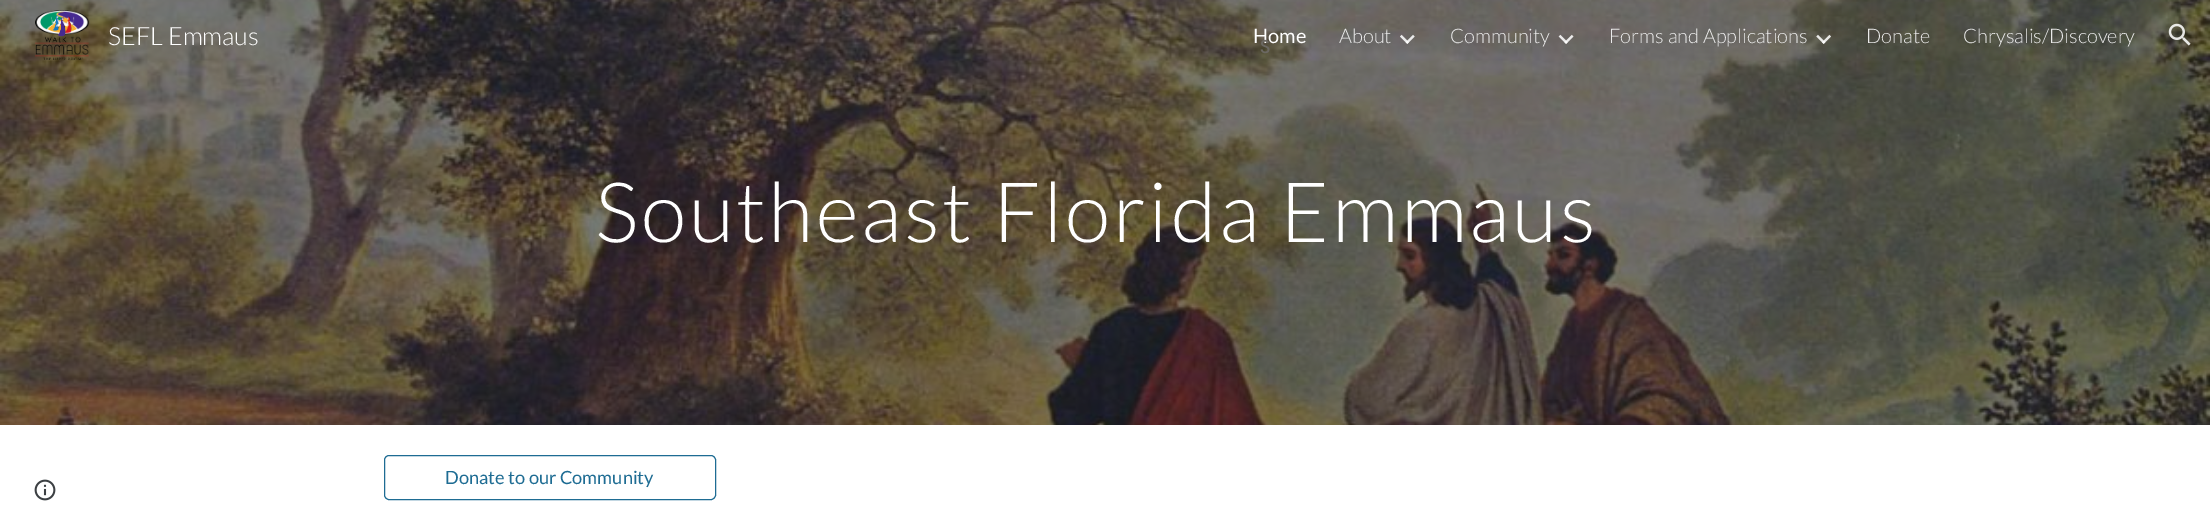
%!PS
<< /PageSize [2210 532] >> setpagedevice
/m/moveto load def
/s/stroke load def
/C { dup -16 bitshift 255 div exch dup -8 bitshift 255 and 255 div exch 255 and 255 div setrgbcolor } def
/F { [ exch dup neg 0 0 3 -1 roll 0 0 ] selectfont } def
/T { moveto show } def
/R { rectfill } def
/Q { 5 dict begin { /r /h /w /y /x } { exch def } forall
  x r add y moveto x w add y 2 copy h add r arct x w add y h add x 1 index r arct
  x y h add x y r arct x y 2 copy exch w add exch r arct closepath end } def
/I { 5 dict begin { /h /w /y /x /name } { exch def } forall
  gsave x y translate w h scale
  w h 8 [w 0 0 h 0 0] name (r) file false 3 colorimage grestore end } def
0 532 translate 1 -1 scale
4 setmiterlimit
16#FFFFFF C
0 0 2210 532 R
(7.rgb) 0 0 2210 425 I
(1.rgb) 35 10 55 50 I
/Lato-Light 25 F
(SEFL Emmaus) 108 45 T
/Lato-Regular 20 F
(Home) 1253 43 T
/Lato-Light 20 F
16#EBEBEB C
(About) 1339 43 T
(2.rgb) 1400 34 15 10 I
(Community) 1450 43 T
(3.rgb) 1558 34 16 10 I
(Forms and Applications) 1609 43 T
(4.rgb) 1816 34 15 10 I
(Donate) 1866 43 T
(Chrysalis/Discovery) 1963 43 T
(5.rgb) 2168 23 23 23 I
(6.rgb) 34 479 22 22 I
/Lato-Light 83.25 F
16#FFFFFF C
595 242 m 2.5 0 (Southeast Florida Emmaus) ashow
16#1E6C93 C
384.5 455.5 331 44 4.5 Q s
/Lato-Regular 18.25 F
(Donate to our Community) 445 484 T
/GoogleSans-Medium 18 F
16#6B6862 C
(S) 1260 53 T
showpage
